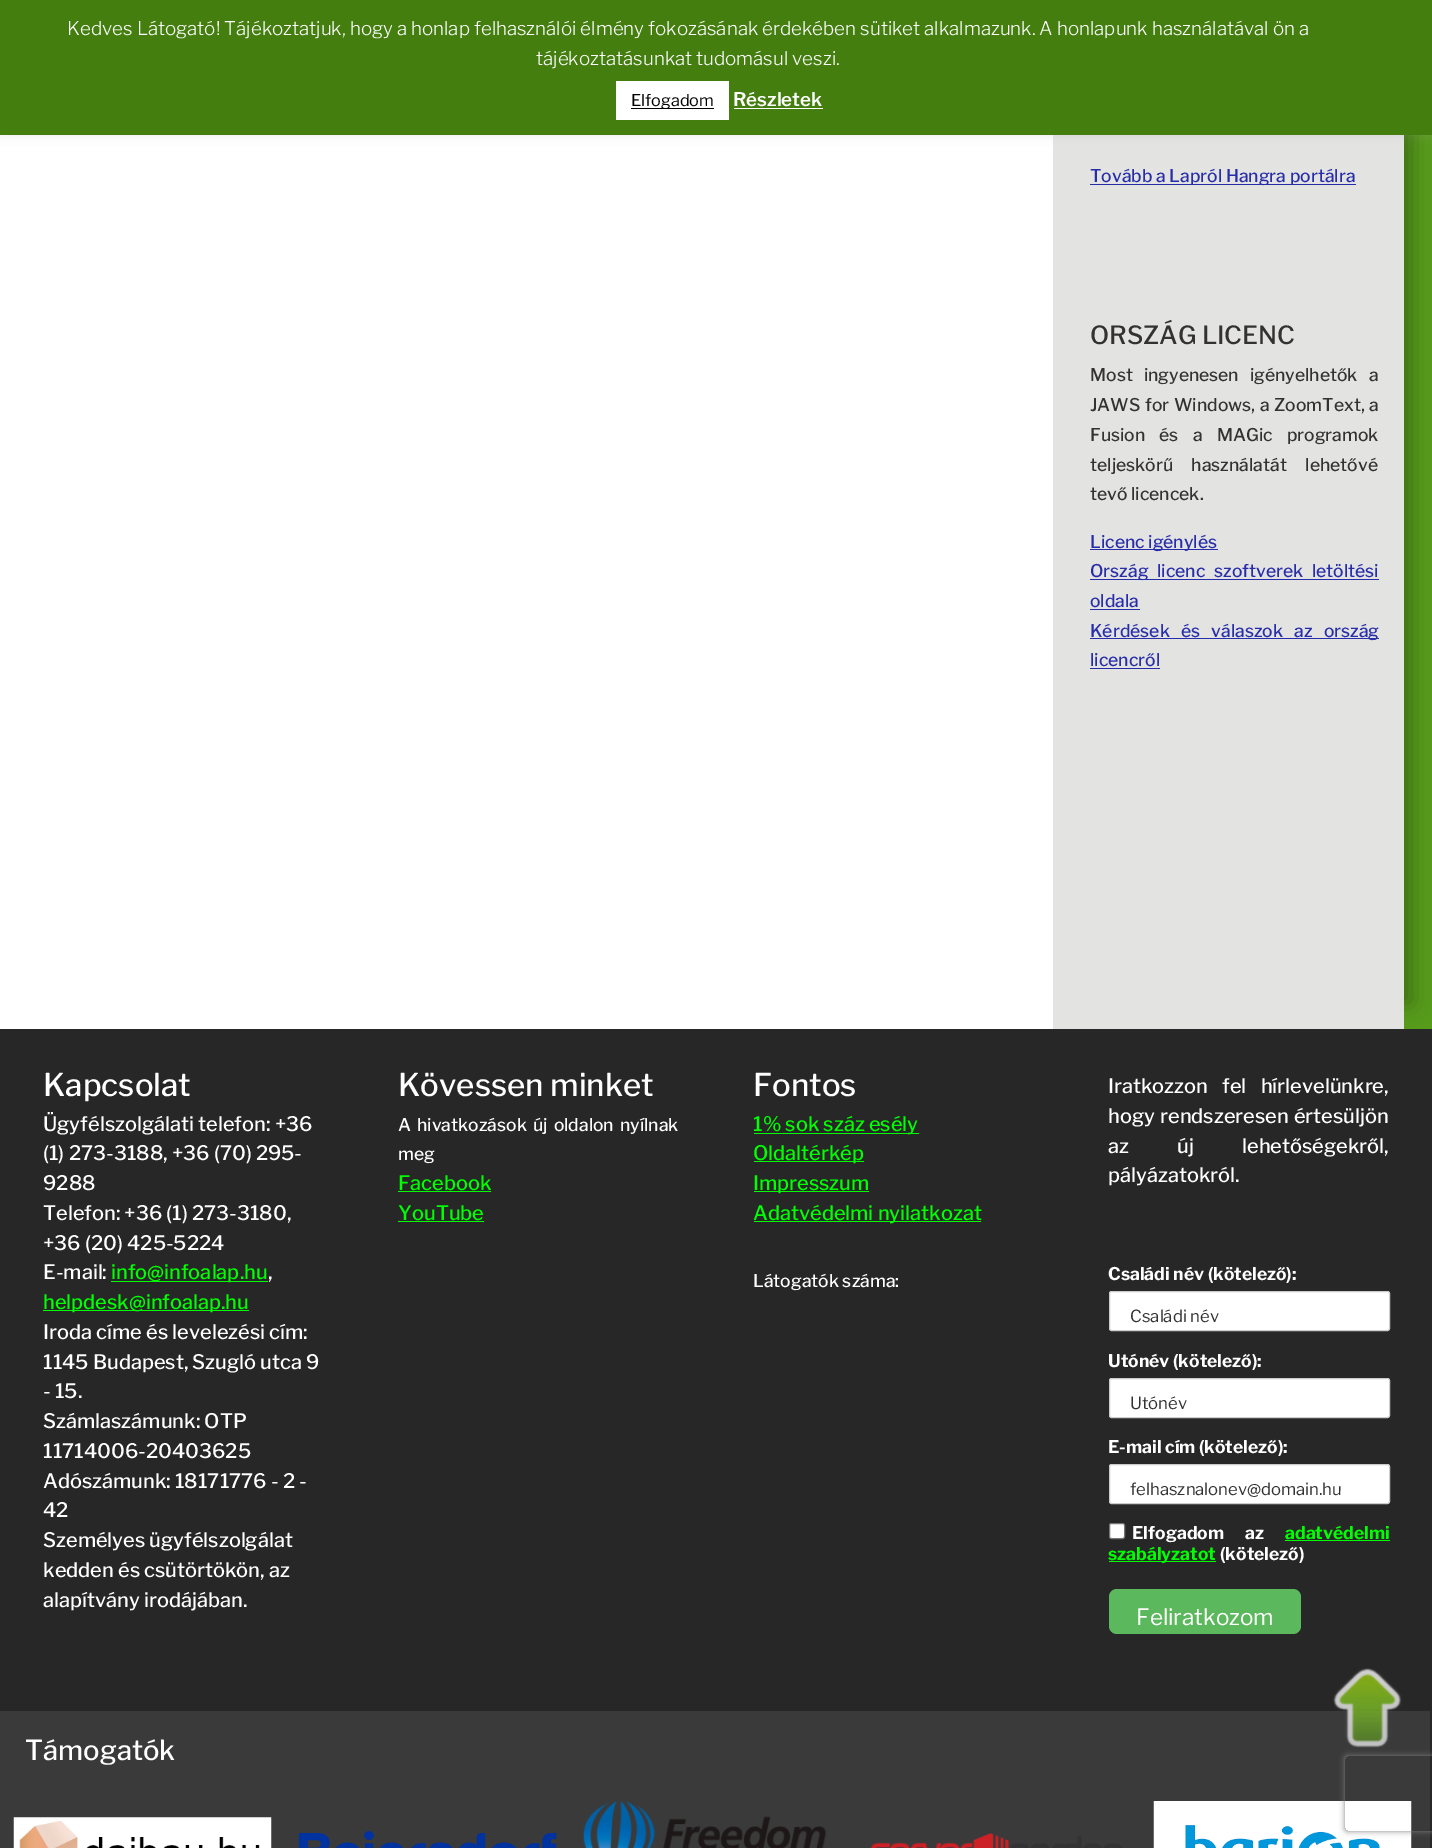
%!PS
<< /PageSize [1432 1848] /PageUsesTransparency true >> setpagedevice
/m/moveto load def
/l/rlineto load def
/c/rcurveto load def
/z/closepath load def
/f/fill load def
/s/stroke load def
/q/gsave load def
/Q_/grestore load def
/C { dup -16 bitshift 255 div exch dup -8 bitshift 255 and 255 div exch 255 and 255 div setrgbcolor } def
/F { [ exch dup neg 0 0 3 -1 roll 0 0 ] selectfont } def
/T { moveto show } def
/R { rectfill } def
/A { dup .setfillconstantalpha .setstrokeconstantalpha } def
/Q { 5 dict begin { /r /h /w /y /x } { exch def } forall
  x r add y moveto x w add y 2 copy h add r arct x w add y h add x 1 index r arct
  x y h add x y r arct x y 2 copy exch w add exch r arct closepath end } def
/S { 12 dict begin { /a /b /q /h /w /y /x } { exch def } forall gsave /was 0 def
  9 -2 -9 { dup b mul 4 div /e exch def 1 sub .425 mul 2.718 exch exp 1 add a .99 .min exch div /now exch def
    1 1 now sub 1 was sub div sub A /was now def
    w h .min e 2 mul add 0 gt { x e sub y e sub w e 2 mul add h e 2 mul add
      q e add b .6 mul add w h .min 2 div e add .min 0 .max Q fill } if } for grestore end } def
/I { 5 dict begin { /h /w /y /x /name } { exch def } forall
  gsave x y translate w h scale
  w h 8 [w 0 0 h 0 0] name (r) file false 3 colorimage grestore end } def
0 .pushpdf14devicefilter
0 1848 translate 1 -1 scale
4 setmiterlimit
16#579B1B C
0 0 1432 1848 R
16#272727 C
0 1029 1432 819 R
16#000000 C
23 -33 1388 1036 0 11 .3 S
16#FFFFFF C
0 135 1053 894 R
16#E3E3E2 C
1053 135 351 894 R
16#ACABAB C
0 -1 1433 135 0 6 .3 S
16#437E0F C
0 0 1432 135 R
/LibreFranklin-Light 18.75 F
16#FFFFFF C
(Kedves Látogató! Tájékoztatjuk, hogy a honlap felhasználói élmény fokozásának érdekében sütiket alkalmazunk. A honlapunk használatával ön a) 67 35 T
(tájékoztatásunkat tudomásul veszi.) 536 65 T
616 81 113 39 R
16#000000 C
631 108 83 1 R
/LibreFranklin-Regular 16.25 F
(Elfogadom) 631 106 T
/LibreFranklin-SemiBold 18.75 F
16#FFFFFF C
(Részletek) 733 106 T
734 108 89 1 R
16#272DA9 C
1090 184 266 1 R
/LibreFranklin-Medium 17.5 F
(Tovább a Lapról Hangra portálra) 1090 182 T
/LibreFranklin-Medium 25 F
16#333132 C
(ORSZÁG LICENC) 1090 344 T
/LibreFranklin-Medium 17.5 F
1090 381 m 7.5 0 32 (Most ingyenesen igényelhetők a) widthshow
1090 411 m 1 0 32 (JAWS for Windows, a ZoomText, a) widthshow
1090 441 m 10.5 0 32 (Fusion és a MAGic programok) widthshow
1090 471 m 15 0 32 (teljeskörű használatát lehetővé) widthshow
(tevő licencek.) 1090 500 T
16#272DA9 C
1090 549 128 1 R
(Licenc igénylés) 1090 548 T
1090 579 289 1 R
1090 577 m 5 0 32 (Ország licenc szoftverek letöltési) widthshow
(oldala) 1090 607 T
1090 609 50 1 R
1090 638 289 1 R
1090 637 m 7.5 0 32 (Kérdések és válaszok az ország) widthshow
(licencről) 1090 666 T
1090 668 70 1 R
/LibreFranklin-Medium 31.25 F
16#FFFFFF C
(Kapcsolat) 43 1096 T
/LibreFranklin-Medium 20 F
(Ügyfélszolgálati telefon: +36) 43 1131 T
(\(1\) 273-3188, +36 \(70\) 295-) 43 1160 T
(9288) 43 1190 T
(Telefon: +36 \(1\) 273-3180,) 43 1220 T
(+36 \(20\) 425-5224) 43 1250 T
(E-mail:) 43 1279 T
16#00FF00 C
111 1281 157 1 R
(info@infoalap.hu) 111 1279 T
16#FFFFFF C
(,) 268 1279 T
16#00FF00 C
43 1310 206 1 R
(helpdesk@infoalap.hu) 43 1309 T
16#FFFFFF C
(Iroda címe és levelezési cím:) 43 1339 T
(1145 Budapest, Szugló utca 9) 43 1369 T
(- 15.) 43 1398 T
(Számlaszámunk: OTP) 43 1428 T
(11714006-20403625) 43 1458 T
(Adószámunk: 18171776 - 2 -) 43 1488 T
(42) 43 1517 T
(Személyes ügyfélszolgálat) 43 1547 T
(kedden és csütörtökön, az) 43 1577 T
(alapítvány irodájában.) 43 1607 T
/LibreFranklin-Medium 31.25 F
(Kövessen minket) 398 1096 T
/LibreFranklin-Medium 17.5 F
398 1131 m 2.5 0 32 (A hivatkozások új oldalon nyílnak) widthshow
(meg) 398 1160 T
/LibreFranklin-Medium 20 F
16#00FF00 C
(Facebook) 398 1190 T
398 1191 93 1 R
(YouTube) 398 1220 T
398 1221 86 1 R
/LibreFranklin-Medium 31.25 F
16#FFFFFF C
(Fontos) 753 1096 T
16#00FF00 C
754 1133 165 1 R
/LibreFranklin-Medium 20 F
(1% sok száz esély) 753 1131 T
754 1161 110 1 R
(Oldaltérkép) 753 1160 T
754 1191 115 1 R
(Impresszum) 753 1190 T
754 1221 227 1 R
(Adatvédelmi nyilatkozat) 753 1220 T
/LibreFranklin-Medium 17.5 F
16#FFFFFF C
(Látogatók száma:) 753 1287 T
/LibreFranklin-Medium 20 F
1108 1093 m 10 0 32 (Iratkozzon fel hírlevelünkre,) widthshow
1108 1123 m 1 0 32 (hogy rendszeresen értesüljön) widthshow
1108 1153 m 44 0 32 (az új lehetőségekről,) widthshow
(pályázatokról.) 1108 1182 T
/LibreFranklin-Bold 17.5 F
(Családi név \(kötelező\):) 1108 1280 T
1109.5 1291.5 280 39 2 Q q f Q_
16#CCCCCC C
s
/LibreFranklin-Regular 16.7 F
16#333132 C
(Családi név) 1130 1322 T
/LibreFranklin-Bold 17.5 F
16#FFFFFF C
(Utónév \(kötelező\):) 1108 1367 T
1109.5 1378.5 280 39 2 Q q f Q_
16#CCCCCC C
s
/LibreFranklin-Regular 16.7 F
16#333132 C
(Utónév) 1130 1409 T
/LibreFranklin-Bold 17.5 F
16#FFFFFF C
(E-mail cím \(kötelező\):) 1108 1453 T
1109.5 1464.5 280 39 2 Q q f Q_
16#CCCCCC C
s
/LibreFranklin-Regular 16.7 F
16#333132 C
(felhasznalonev@domain.hu) 1130 1495 T
16#FFFFFF C
1109.5 1523.5 15 15 2 Q q f Q_
16#767676 C
s
/LibreFranklin-Bold 17.5 F
16#FFFFFF C
1132 1539 m 18 0 32 (Elfogadom az) widthshow
16#00FF00 C
(adatvédelmi) 1285 1539 T
1285 1540 105 1 R
1109 1561 107 1 R
(szabályzatot) 1108 1560 T
16#FFFFFF C
(\(kötelező\)) 1220 1560 T
16#5CB85C C
1109 1589 192 45 8 Q f
/LibreFranklin-Regular 22.5 F
16#FFFFFF C
(Feliratkozom) 1136 1625 T
16#3A3A3A C
0 1711 1430 137 R
/LibreFranklin-Medium 27.5 F
16#FFFFFF C
(Támogatók) 25 1760 T
(1.rgb) 13 1817 259 31 I
(2.rgb) 298 1831 259 17 I
(3.rgb) 583 1801 243 47 I
(4.rgb) 871 1833 251 15 I
(5.rgb) 1153 1801 259 47 I
q
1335 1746 m 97 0 l 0 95 l -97 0 l z 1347.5 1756 m 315 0 l 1.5 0 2.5 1 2.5 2.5 c 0 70 l 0 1.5 -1 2.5 -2.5 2.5 c -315 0 l -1.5 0 -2.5 -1 -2.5 -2.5 c 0 -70 l 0 -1.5 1 -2.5 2.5 -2.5 c z eoclip newpath
16#808080 C
1345 1756 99 75 2.5 3 1 S
Q_
(6.rgb) 1333 1668 69 80 I
.poppdf14devicefilter showpage
